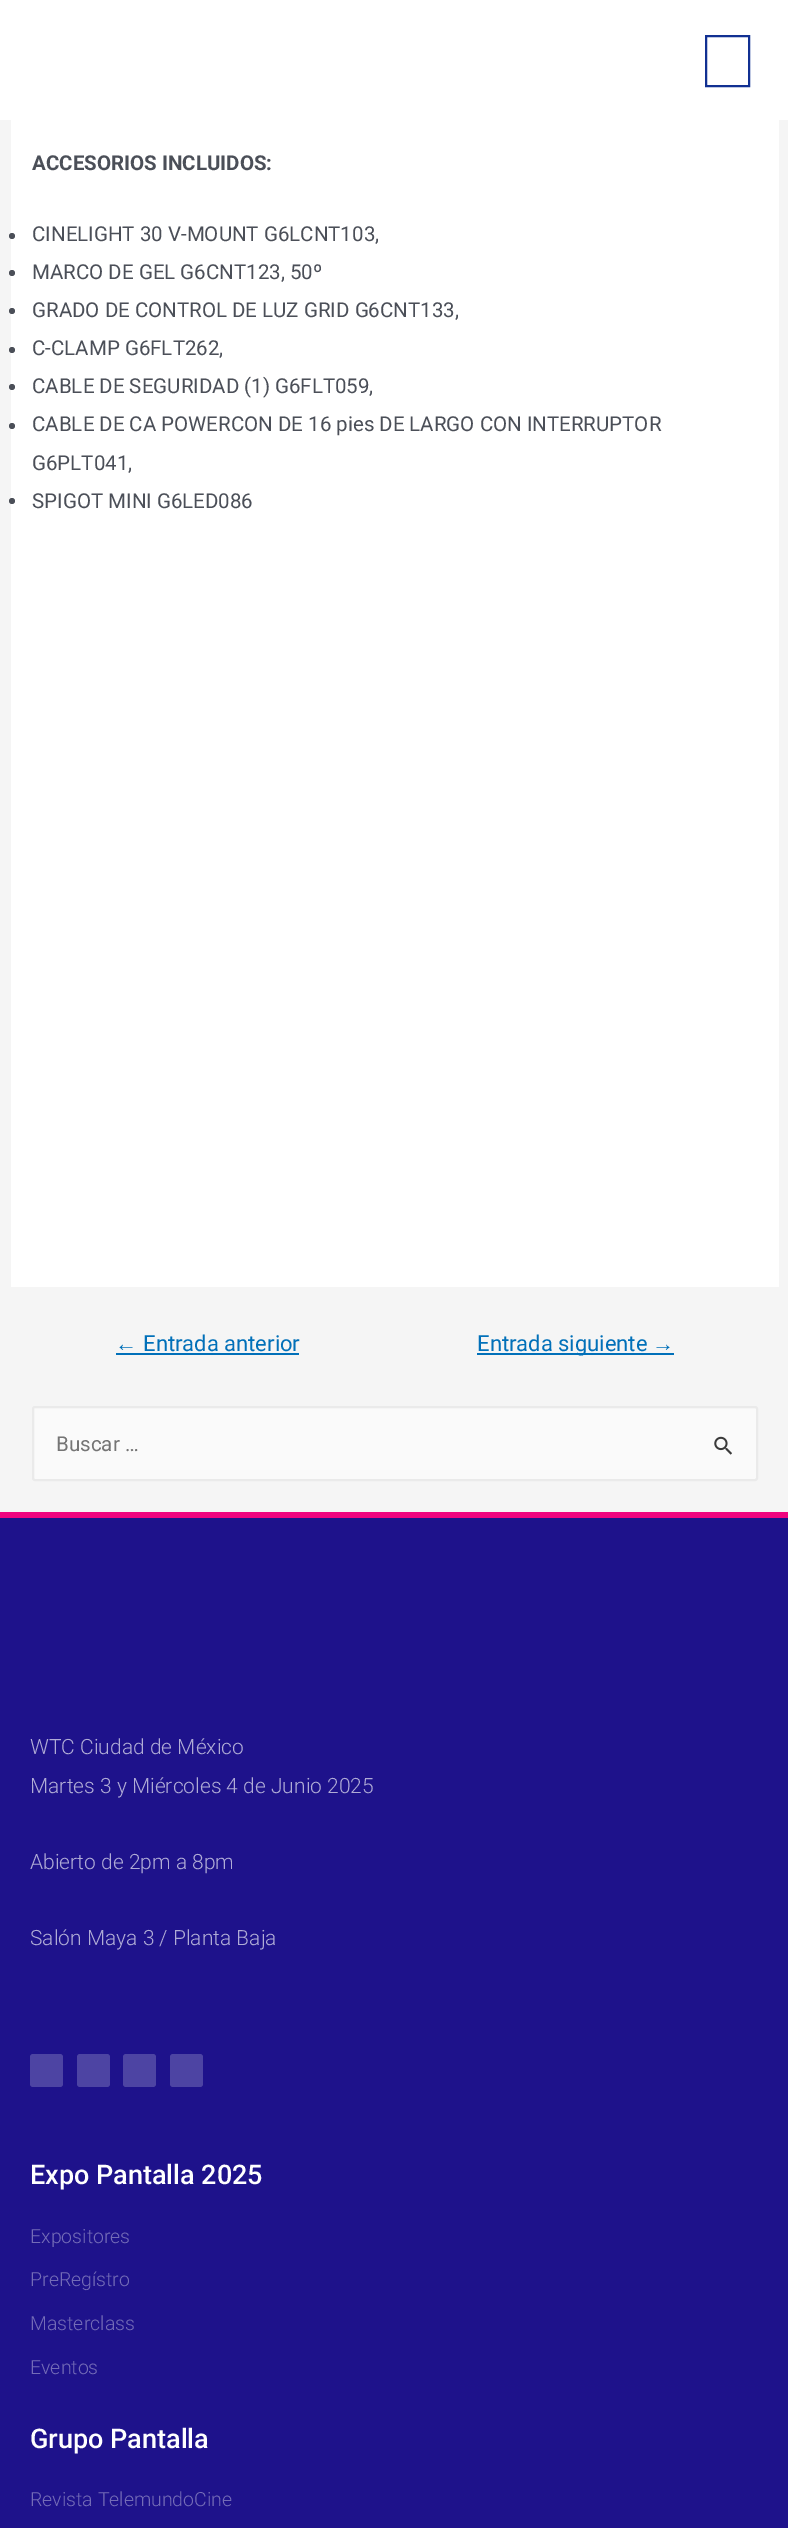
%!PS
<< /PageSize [788 2528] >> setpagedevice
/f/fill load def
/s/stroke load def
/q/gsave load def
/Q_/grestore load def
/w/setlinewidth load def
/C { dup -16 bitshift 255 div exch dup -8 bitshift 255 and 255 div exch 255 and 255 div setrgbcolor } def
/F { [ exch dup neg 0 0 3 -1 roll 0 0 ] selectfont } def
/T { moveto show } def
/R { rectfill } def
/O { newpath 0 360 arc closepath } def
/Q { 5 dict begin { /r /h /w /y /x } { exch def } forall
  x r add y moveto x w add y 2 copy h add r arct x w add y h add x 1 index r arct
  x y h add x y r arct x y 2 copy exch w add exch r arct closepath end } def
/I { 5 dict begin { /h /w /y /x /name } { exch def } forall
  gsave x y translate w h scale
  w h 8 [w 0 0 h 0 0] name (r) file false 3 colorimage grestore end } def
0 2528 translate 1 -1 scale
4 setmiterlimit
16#F5F5F5 C
0 0 788 2528 R
16#FFFFFF C
0 0 788 120 R
16#113092 C
2 w
706 36 43 50 rectstroke
16#FFFFFF C
11 120 768 1167 R
/Roboto-Bold 20.5 F
16#4B4F58 C
(ACCESORIOS INCLUIDOS:) 32 170 T
12 236 3 O f
/Roboto-Regular 20.5 F
(CINELIGHT 30 V-MOUNT G6LCNT103,) 32 241 T
12 273 3 O f
(MARCO DE GEL G6CNT123, 50º) 32 279 T
12 311 3 O f
(GRADO DE CONTROL DE LUZ GRID G6CNT133,) 32 317 T
12 350 3 O f
(C-CLAMP G6FLT262,) 32 355 T
12 387 3 O f
(CABLE DE SEGURIDAD \(1\) G6FLT059,) 32 393 T
12 426 3 O f
(CABLE DE CA POWERCON DE 16 pies DE LARGO CON INTERRUPTOR) 32 431 T
(G6PLT041,) 32 470 T
12 501 3 O f
(SPIGOT MINI G6LED086) 32 508 T
/LiberationSans-Regular 22 F
16#0170B9 C
(←) 115 1351 T
116 1353 183 2 R
/Roboto-Regular 22 F
(Entrada anterior) 143 1351 T
477 1353 197 2 R
(Entrada siguiente) 477 1351 T
/LiberationSans-Regular 22 F
(→) 652 1351 T
16#FAFAFA C
33 1407 724 73 2 Q q f Q_
16#EAEAEA C
s
/Roboto-Regular 20.5 F
16#757575 C
(Buscar …) 56 1451 T
(1.rgb) 714 1436 18 19 I
16#1E128B C
0 1518 788 1010 R
16#F0047F C
0 1512 788 6 R
/Roboto-Light 21 F
16#B0ACD6 C
(WTC Ciudad de México) 30 1754 T
(Martes 3 y Miércoles 4 de Junio 2025) 30 1793 T
(Abierto de 2pm a 8pm) 30 1869 T
(Salón Maya 3 / Planta Baja) 30 1945 T
16#4D44A3 C
30 2054 33 33 3 Q f
77 2054 33 33 3 Q f
123 2054 33 33 3 Q f
170 2054 33 33 3 Q f
/Roboto-Medium 27 F
16#FFFFFF C
(Expo Pantalla 2025) 30 2184 T
/Roboto-Light 19.5 F
16#746CB7 C
(Expositores) 30 2243 T
(PreRegístro) 30 2286 T
(Masterclass) 30 2330 T
(Eventos) 30 2374 T
/Roboto-Medium 27 F
16#FFFFFF C
(Grupo Pantalla) 30 2448 T
/Roboto-Light 19.5 F
16#746CB7 C
(Revista TelemundoCine) 30 2506 T
showpage
